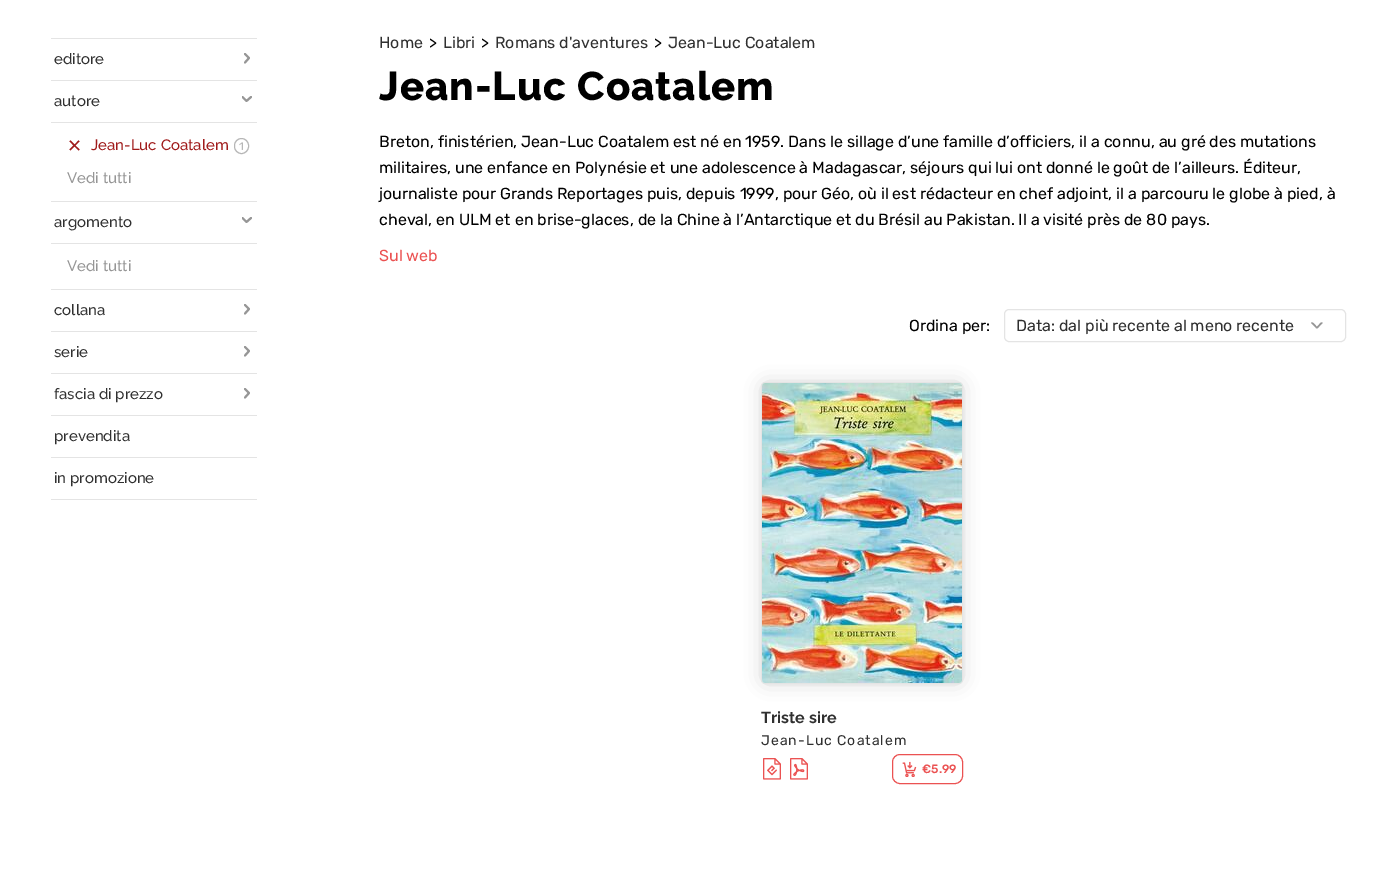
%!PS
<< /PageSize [1397 870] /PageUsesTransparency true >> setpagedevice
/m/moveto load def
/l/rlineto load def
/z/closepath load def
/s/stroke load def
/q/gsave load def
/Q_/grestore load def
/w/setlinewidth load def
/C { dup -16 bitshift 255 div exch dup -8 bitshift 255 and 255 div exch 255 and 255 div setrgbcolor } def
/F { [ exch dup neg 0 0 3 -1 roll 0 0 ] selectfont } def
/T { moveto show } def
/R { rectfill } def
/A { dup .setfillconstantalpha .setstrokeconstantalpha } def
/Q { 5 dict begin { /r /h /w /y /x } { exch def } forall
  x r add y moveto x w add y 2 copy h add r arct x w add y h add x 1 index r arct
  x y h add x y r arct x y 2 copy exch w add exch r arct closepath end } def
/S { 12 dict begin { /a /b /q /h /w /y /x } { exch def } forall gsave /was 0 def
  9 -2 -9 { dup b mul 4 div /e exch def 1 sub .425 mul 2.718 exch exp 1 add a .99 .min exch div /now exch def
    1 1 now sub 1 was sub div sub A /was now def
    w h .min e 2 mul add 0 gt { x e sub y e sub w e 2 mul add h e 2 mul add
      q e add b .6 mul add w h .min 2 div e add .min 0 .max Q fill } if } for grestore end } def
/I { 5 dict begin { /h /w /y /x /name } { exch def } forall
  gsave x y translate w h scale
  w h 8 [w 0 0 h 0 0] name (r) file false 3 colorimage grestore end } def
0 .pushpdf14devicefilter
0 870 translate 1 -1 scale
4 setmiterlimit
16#FFFFFF C
0 0 1397 870 R
16#E4E4E4 C
51 38 206 1 R
51 80 206 1 R
/Raleway-Medium 15 F
16#303030 C
(editore) 54 64 T
16#969696 C
2 w
1 setlinecap
1 setlinejoin
245 54 m 4 4 l -4 4.5 l s
16#E4E4E4 C
51 122 206 1 R
16#303030 C
(autore) 54 106 T
q
252.5 94.5 m 0 10 l -10 0 l 0 -10 l z clip newpath
16#969696 C
251 97 m -4.5 4 l -4 -4 l s
Q_
16#E4E4E4 C
51 201 206 1 R
/DejaVuSans-Regular 18 F
16#A01B1B C
(✕) 67 152 T
/Raleway-Medium 15 F
(Jean-Luc Coatalem) 91 150 T
16#B6B6B6 C
1 w
0 setlinecap
0 setlinejoin
234.5 138.5 14 15 7 Q s
/Rubik-Regular 11 F
(1) 239 150 T
/Raleway-Medium 15 F
16#969696 C
(Vedi tutti) 67 183 T
16#E4E4E4 C
51 243 206 1 R
16#303030 C
(argomento) 54 227 T
q
252.5 215.5 m 0 10 l -10 0 l 0 -10 l z clip newpath
16#969696 C
2 w
1 setlinecap
1 setlinejoin
251 218 m -4.5 4 l -4 -4 l s
Q_
16#E4E4E4 C
51 289 206 1 R
16#969696 C
(Vedi tutti) 67 271 T
16#E4E4E4 C
51 331 206 1 R
16#303030 C
(collana) 54 315 T
16#969696 C
2 w
1 setlinecap
1 setlinejoin
245 305 m 4 4 l -4 4.5 l 245 347 m 4 4 l -4 4.5 l s
16#E4E4E4 C
51 373 206 1 R
16#303030 C
(serie) 54 357 T
16#E4E4E4 C
51 415 206 1 R
16#303030 C
(fascia di prezzo) 54 399 T
16#969696 C
245 389 m 4 4 l -4 4.5 l s
16#E4E4E4 C
51 457 206 1 R
16#303030 C
(prevendita) 54 441 T
16#E4E4E4 C
51 499 206 1 R
16#303030 C
(in promozione) 54 483 T
/Rubik-Regular 16 F
(Home) 379 48 T
16#000000 C
(>) 429 48 T
16#303030 C
(Libri) 443 48 T
16#000000 C
(>) 481 48 T
16#303030 C
(Romans d'aventures) 495 48 T
16#000000 C
(>) 654 48 T
16#303030 C
(Jean-Luc Coatalem) 668 48 T
/Raleway-ExtraBold 40 F
16#000000 C
379 100 m 1 0 (Jean-Luc Coatalem) ashow
/Rubik-Regular 16 F
(Breton, finistérien, Jean-Luc Coatalem est né en 1959. Dans le sillage d’une famille d’officiers, il a connu, au gré des mutations) 379 147 T
(militaires, une enfance en Polynésie et une adolescence à Madagascar, séjours qui lui ont donné le goût de l’ailleurs. Éditeur,) 379 173 T
(journaliste pour Grands Reportages puis, depuis 1999, pour Géo, où il est rédacteur en chef adjoint, il a parcouru le globe à pied, à) 379 199 T
(cheval, en ULM et en brise-glaces, de la Chine à l’Antarctique et du Brésil au Pakistan. Il a visité près de 80 pays.) 379 225 T
16#EB5252 C
(Sul web) 379 261 T
16#000000 C
(Ordina per:) 909 331 T
16#E4E4E4 C
1 w
0 setlinecap
0 setlinejoin
1004.5 309.5 341 32 4.5 Q s
16#303030 C
(Data: dal più recente al meno recente) 1016 331 T
/Rubik-Regular 24 F
16#969696 C
q 1309 321 translate 90 rotate 0 0 m (›) show Q_
16#000000 C
766 387 192 292 0 10 .25 S
16#E4E4E4 C
761.5 382.5 201 301 3.5 Q s
(1.rgb) 762 383 200 300 I
/Raleway-Bold 16 F
16#303030 C
(Triste sire) 761 723 T
/Rubik-Regular 14 F
761 745 m 1 0 (Jean-Luc Coatalem) ashow
(2.rgb) 763 758 18 22 I
(3.rgb) 790 758 18 22 I
16#EB5252 C
892.5 754.5 70 29 7.5 Q s
(4.rgb) 902 761 15 16 I
/Rubik-Medium 12 F
(€5.99) 922 773 T
.poppdf14devicefilter showpage
